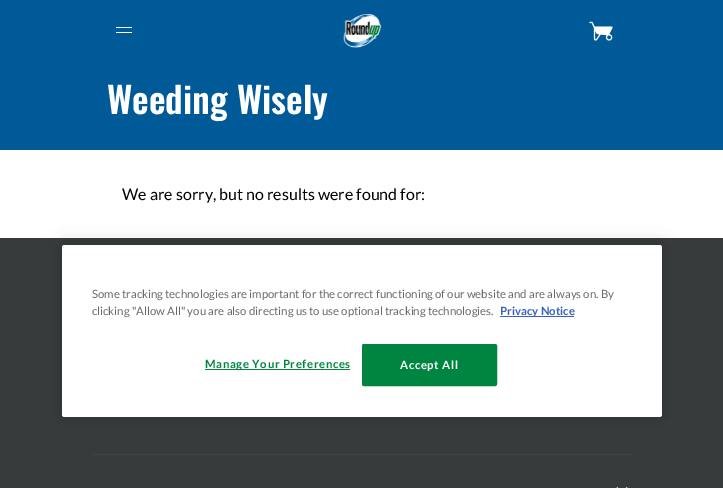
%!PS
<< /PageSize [723 488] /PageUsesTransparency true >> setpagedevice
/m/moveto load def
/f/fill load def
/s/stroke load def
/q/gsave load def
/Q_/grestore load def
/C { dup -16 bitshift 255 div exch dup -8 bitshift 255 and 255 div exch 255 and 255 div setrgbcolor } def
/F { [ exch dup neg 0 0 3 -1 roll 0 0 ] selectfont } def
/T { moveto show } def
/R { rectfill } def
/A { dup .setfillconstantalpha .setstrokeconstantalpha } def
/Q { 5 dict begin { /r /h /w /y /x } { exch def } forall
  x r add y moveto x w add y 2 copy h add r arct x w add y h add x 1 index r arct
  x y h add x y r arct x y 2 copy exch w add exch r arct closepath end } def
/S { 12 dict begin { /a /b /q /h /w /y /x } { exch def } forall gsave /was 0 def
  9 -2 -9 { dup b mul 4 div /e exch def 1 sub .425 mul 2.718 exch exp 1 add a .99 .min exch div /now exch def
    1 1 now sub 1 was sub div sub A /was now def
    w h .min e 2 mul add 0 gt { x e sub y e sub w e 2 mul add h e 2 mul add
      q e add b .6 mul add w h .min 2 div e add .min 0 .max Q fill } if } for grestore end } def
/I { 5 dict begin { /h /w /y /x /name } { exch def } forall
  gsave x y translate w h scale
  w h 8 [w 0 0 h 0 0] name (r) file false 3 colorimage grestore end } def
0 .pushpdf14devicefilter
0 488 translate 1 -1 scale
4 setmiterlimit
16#FFFFFF C
0 0 723 488 R
16#005A97 C
0 0 723 150 R
16#FFFFFF C
116 27 16 1 .5 Q f
116 32 16 1 .5 Q f
(1.rgb) 343 13 39 35 I
(2.rgb) 589 21 24 20 I
/Oswald-SemiBold 36 F
(Weeding Wisely) 107 114 T
/Lato-Regular 16 F
16#000000 C
(We are sorry, but no results were found for:) 122 200 T
16#373B3C C
0 238 723 250 R
16#424242 C
92 454 540 1 R
(3.rgb) 616 487 12 1 I
16#000000 C
62 245 600 172 2.5 9 .2 S
16#FFFFFF C
62 245 600 172 2.5 Q f
/Lato-Regular 11.4 F
16#696969 C
(Some tracking technologies are important for the correct functioning of our website and are always on. By) 92 298 T
(clicking "Allow All" you are also directing us to use optional tracking technologies.) 92 315 T
16#3860BE C
500 316 74 1 R
/Lato-Bold 11.4 F
(Privacy Notice) 500 315 T
16#008540 C
205 369 145 1 R
205 368 m .6 0 (Manage Your Preferences) ashow
362.5 344.5 134 41 1.5 Q q f Q_
s
16#FFFFFF C
400 369 m .6 0 (Accept All) ashow
.poppdf14devicefilter showpage
